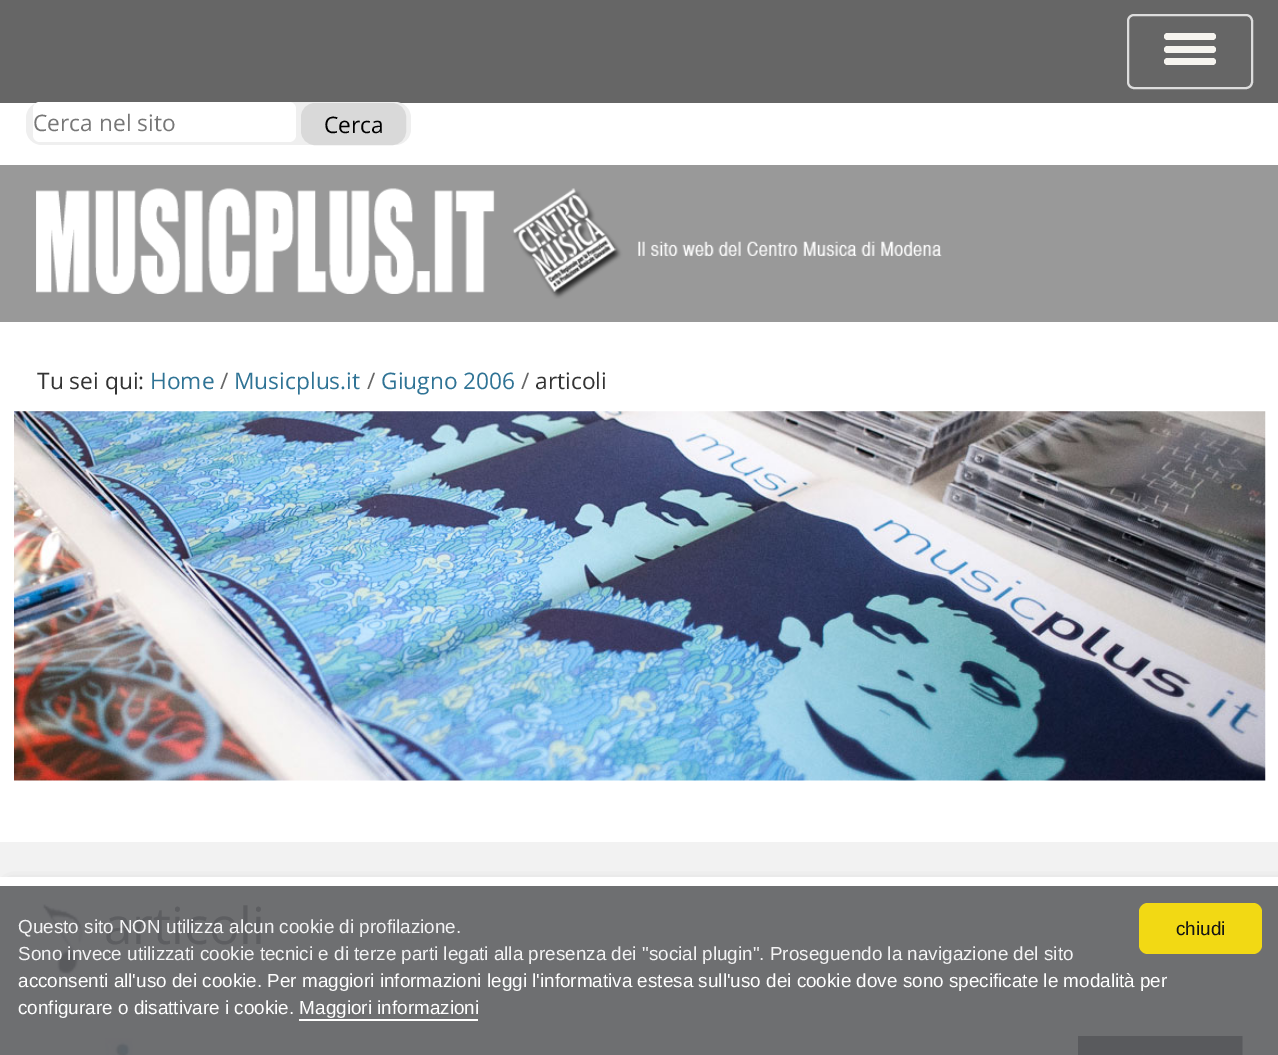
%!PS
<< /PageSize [1278 1055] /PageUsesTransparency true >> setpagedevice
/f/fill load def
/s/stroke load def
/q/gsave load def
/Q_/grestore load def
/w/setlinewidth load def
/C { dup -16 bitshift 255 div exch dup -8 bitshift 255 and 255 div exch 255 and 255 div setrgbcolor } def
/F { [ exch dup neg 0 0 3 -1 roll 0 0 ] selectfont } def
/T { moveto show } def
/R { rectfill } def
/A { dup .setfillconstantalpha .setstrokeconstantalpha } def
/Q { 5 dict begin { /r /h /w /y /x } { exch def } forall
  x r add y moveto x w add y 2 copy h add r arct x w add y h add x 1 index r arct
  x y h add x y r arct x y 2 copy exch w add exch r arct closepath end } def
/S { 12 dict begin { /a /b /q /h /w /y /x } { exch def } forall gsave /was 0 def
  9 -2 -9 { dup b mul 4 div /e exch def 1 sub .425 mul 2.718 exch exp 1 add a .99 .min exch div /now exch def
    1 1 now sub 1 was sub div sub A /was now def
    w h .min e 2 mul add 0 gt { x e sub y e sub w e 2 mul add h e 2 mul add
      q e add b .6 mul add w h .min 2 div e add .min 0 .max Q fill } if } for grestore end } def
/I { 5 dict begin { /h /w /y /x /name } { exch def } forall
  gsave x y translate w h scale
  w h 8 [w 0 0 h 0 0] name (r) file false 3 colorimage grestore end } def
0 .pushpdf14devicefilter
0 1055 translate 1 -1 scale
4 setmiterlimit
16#F2F2F2 C
0 0 1278 1055 R
16#FFFFFF C
0 103 1278 739 R
16#666666 C
0 0 1278 103 R
16#DDDDDD C
2 w
1128 15 124 73 6 Q s
16#F6F4EF C
1164 33 52 7 3.5 Q f
1164 46 52 7 3.5 Q f
1164 58 52 7 3.5 Q f
16#EFEFEF C
26 102 385 43 16 Q f
16#FFFFFF C
33 102 263 40 7 Q f
/OpenSans-Regular 22.75 F
16#777777 C
(Cerca nel sito) 33 131 T
16#D9D9D9 C
302 104 103 40 13 Q q f Q_
s
16#000000 C
(Cerca) 324 133 T
16#999999 C
0 165 1278 157 R
(1.rgb) 36 188 906 111 I
16#333333 C
(Tu sei qui:) 37 389 T
16#2F7395 C
(Home) 150 389 T
16#666666 C
(/) 220 389 T
16#2F7395 C
(Musicplus.it) 234 389 T
16#666666 C
(/) 367 389 T
16#2F7395 C
(Giugno 2006) 381 389 T
16#666666 C
(/) 521 389 T
16#333333 C
(articoli) 535 389 T
(2.rgb) 14 411 1252 370 I
16#808080 C
11 887 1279 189 0 7 1 S
16#FFFFFF C
0 877 1278 9 R
16#6E6F71 C
0 886 1278 169 R
(3.rgb) 42 904 41 71 I
/OpenSans-Regular 51 F
16#5D5E61 C
(articoli) 104 944 T
(4.rgb) 105 1038 28 17 I
(5.rgb) 1078 1036 165 19 I
/LiberationSans-Regular 18.9 F
16#F3F3F4 C
(Questo sito NON utilizza alcun cookie di profilazione.) 18 933 T
(Sono invece utilizzati cookie tecnici e di terze parti legati alla presenza dei "social plugin". Proseguendo la navigazione del sito) 18 960 T
16#FFFFFF C
(acconsenti all'uso dei cookie. Per maggiori informazioni leggi l'informativa estesa sull'uso dei cookie dove sono specificate le modalità per) 18 987 T
(configurare o disattivare i cookie. Maggiori informazioni) 18 1014 T
299 1019 179 2 R
16#F2D914 C
1139 903 123 51 9 Q f
16#141414 C
(chiudi) 1176 935 T
.poppdf14devicefilter showpage
